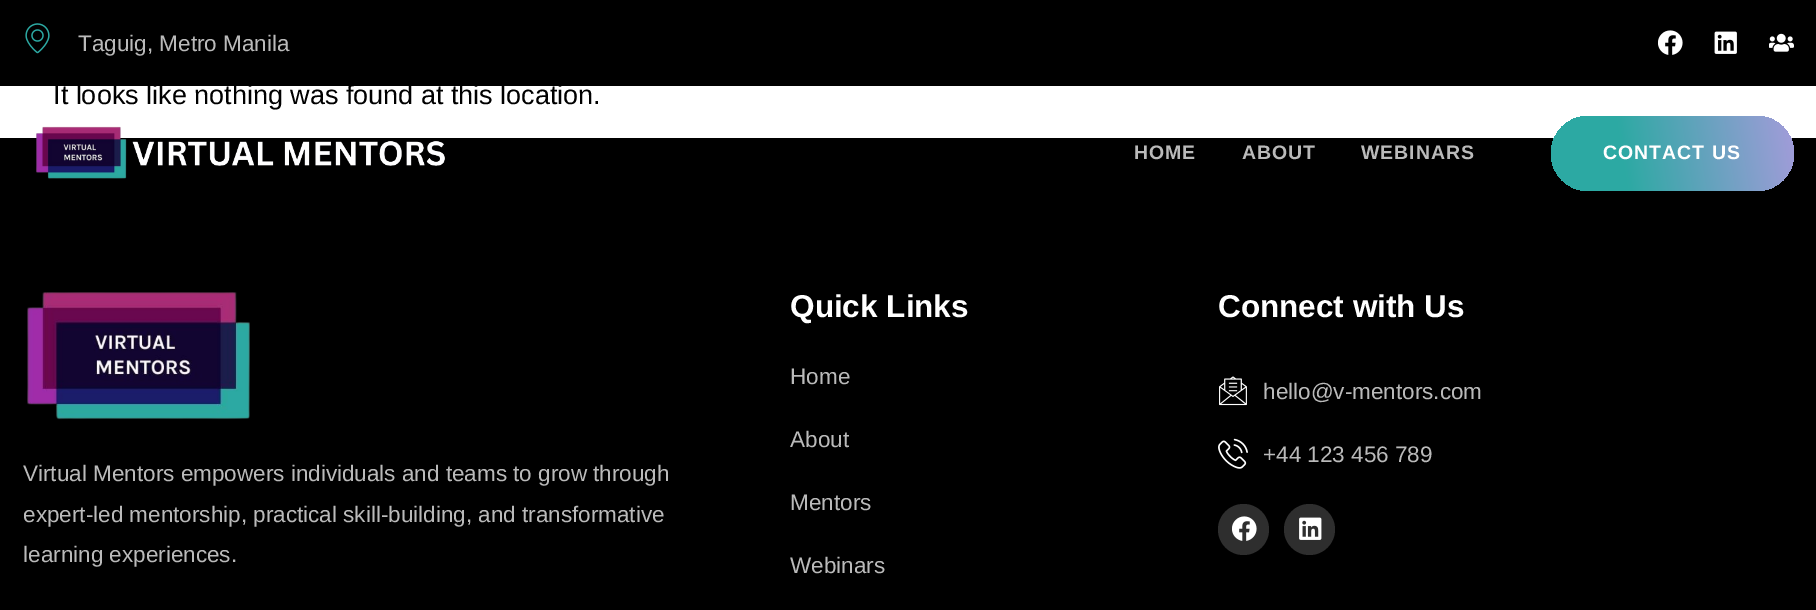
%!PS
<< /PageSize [1816 610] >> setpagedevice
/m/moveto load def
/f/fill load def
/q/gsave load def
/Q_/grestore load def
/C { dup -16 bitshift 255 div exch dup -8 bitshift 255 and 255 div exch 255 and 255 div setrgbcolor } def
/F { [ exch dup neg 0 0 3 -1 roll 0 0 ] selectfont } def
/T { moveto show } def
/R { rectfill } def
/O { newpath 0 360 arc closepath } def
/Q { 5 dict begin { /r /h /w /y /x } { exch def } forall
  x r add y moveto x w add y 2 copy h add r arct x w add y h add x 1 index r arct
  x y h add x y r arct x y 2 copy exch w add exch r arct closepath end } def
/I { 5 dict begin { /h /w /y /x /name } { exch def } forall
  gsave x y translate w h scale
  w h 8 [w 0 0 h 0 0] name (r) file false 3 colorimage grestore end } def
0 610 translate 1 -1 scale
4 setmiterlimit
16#FFFFFF C
0 0 1816 610 R
16#000000 C
0 0 1816 86 R
(1.rgb) 25 23 25 31 I
/LiberationSans-Regular 22.5 F
16#BABABA C
(Taguig, Metro Manila) 78 51 T
(2.rgb) 1658 30 25 25 I
(3.rgb) 1714 31 23 23 I
(4.rgb) 1769 33 25 19 I
16#000000 C
0 138 1816 472 R
(5.rgb) 36 126 409 53 I
/LiberationSans-Bold 19.5 F
16#BABABA C
1134 159 m 1 0 (HOME) ashow
1242 159 m 1 0 (ABOUT) ashow
1361 159 m 1 0 (WEBINARS) ashow
q 1551 116 243 75 37.5 Q clip newpath
<< /ShadingType 2 /ColorSpace /DeviceRGB /Coords [1548 173 1797 133] /Extend [true true] /Function << /FunctionType 3 /Domain [0 1] /Functions [<< /FunctionType 2 /Domain [0 1] /C0 [.173 .663 .639] /C1 [.173 .663 .639] /N 1 >> << /FunctionType 2 /Domain [0 1] /C0 [.173 .663 .639] /C1 [.639 .612 .855] /N 1 >>] /Bounds [.3] /Encode [0 1 0 1] >> >> shfill Q_
16#FFFFFF C
1603 159 m 1 0 (CONTACT US) ashow
/LiberationSans-Regular 27 F
16#000000 C
(It looks like nothing was found at this location.) 53 104 T
/LiberationSans-Bold 31.5 F
16#FFFFFF C
(Quick Links) 790 317 T
/LiberationSans-Regular 22.5 F
16#BABABA C
(Home) 790 384 T
(About) 790 447 T
(Mentors) 790 510 T
(Webinars) 790 573 T
/LiberationSans-Bold 31.5 F
16#FFFFFF C
(Connect with Us) 1218 317 T
(6.rgb) 1219 376 28 30 I
/LiberationSans-Regular 22.5 F
16#BABABA C
(hello@v-mentors.com) 1263 399 T
(7.rgb) 1218 438 30 31 I
(+44 123 456 789) 1263 462 T
16#2E2E2E C
1243.5 529.5 25.5 O f
(8.rgb) 1232 516 25 25 I
1309.5 529.5 25.5 O f
(9.rgb) 1299 517 23 23 I
(10.rgb) 27 292 223 128 I
16#BABABA C
(Virtual Mentors empowers individuals and teams to grow through) 23 481 T
(expert-led mentorship, practical skill-building, and transformative) 23 522 T
(learning experiences.) 23 562 T
showpage
